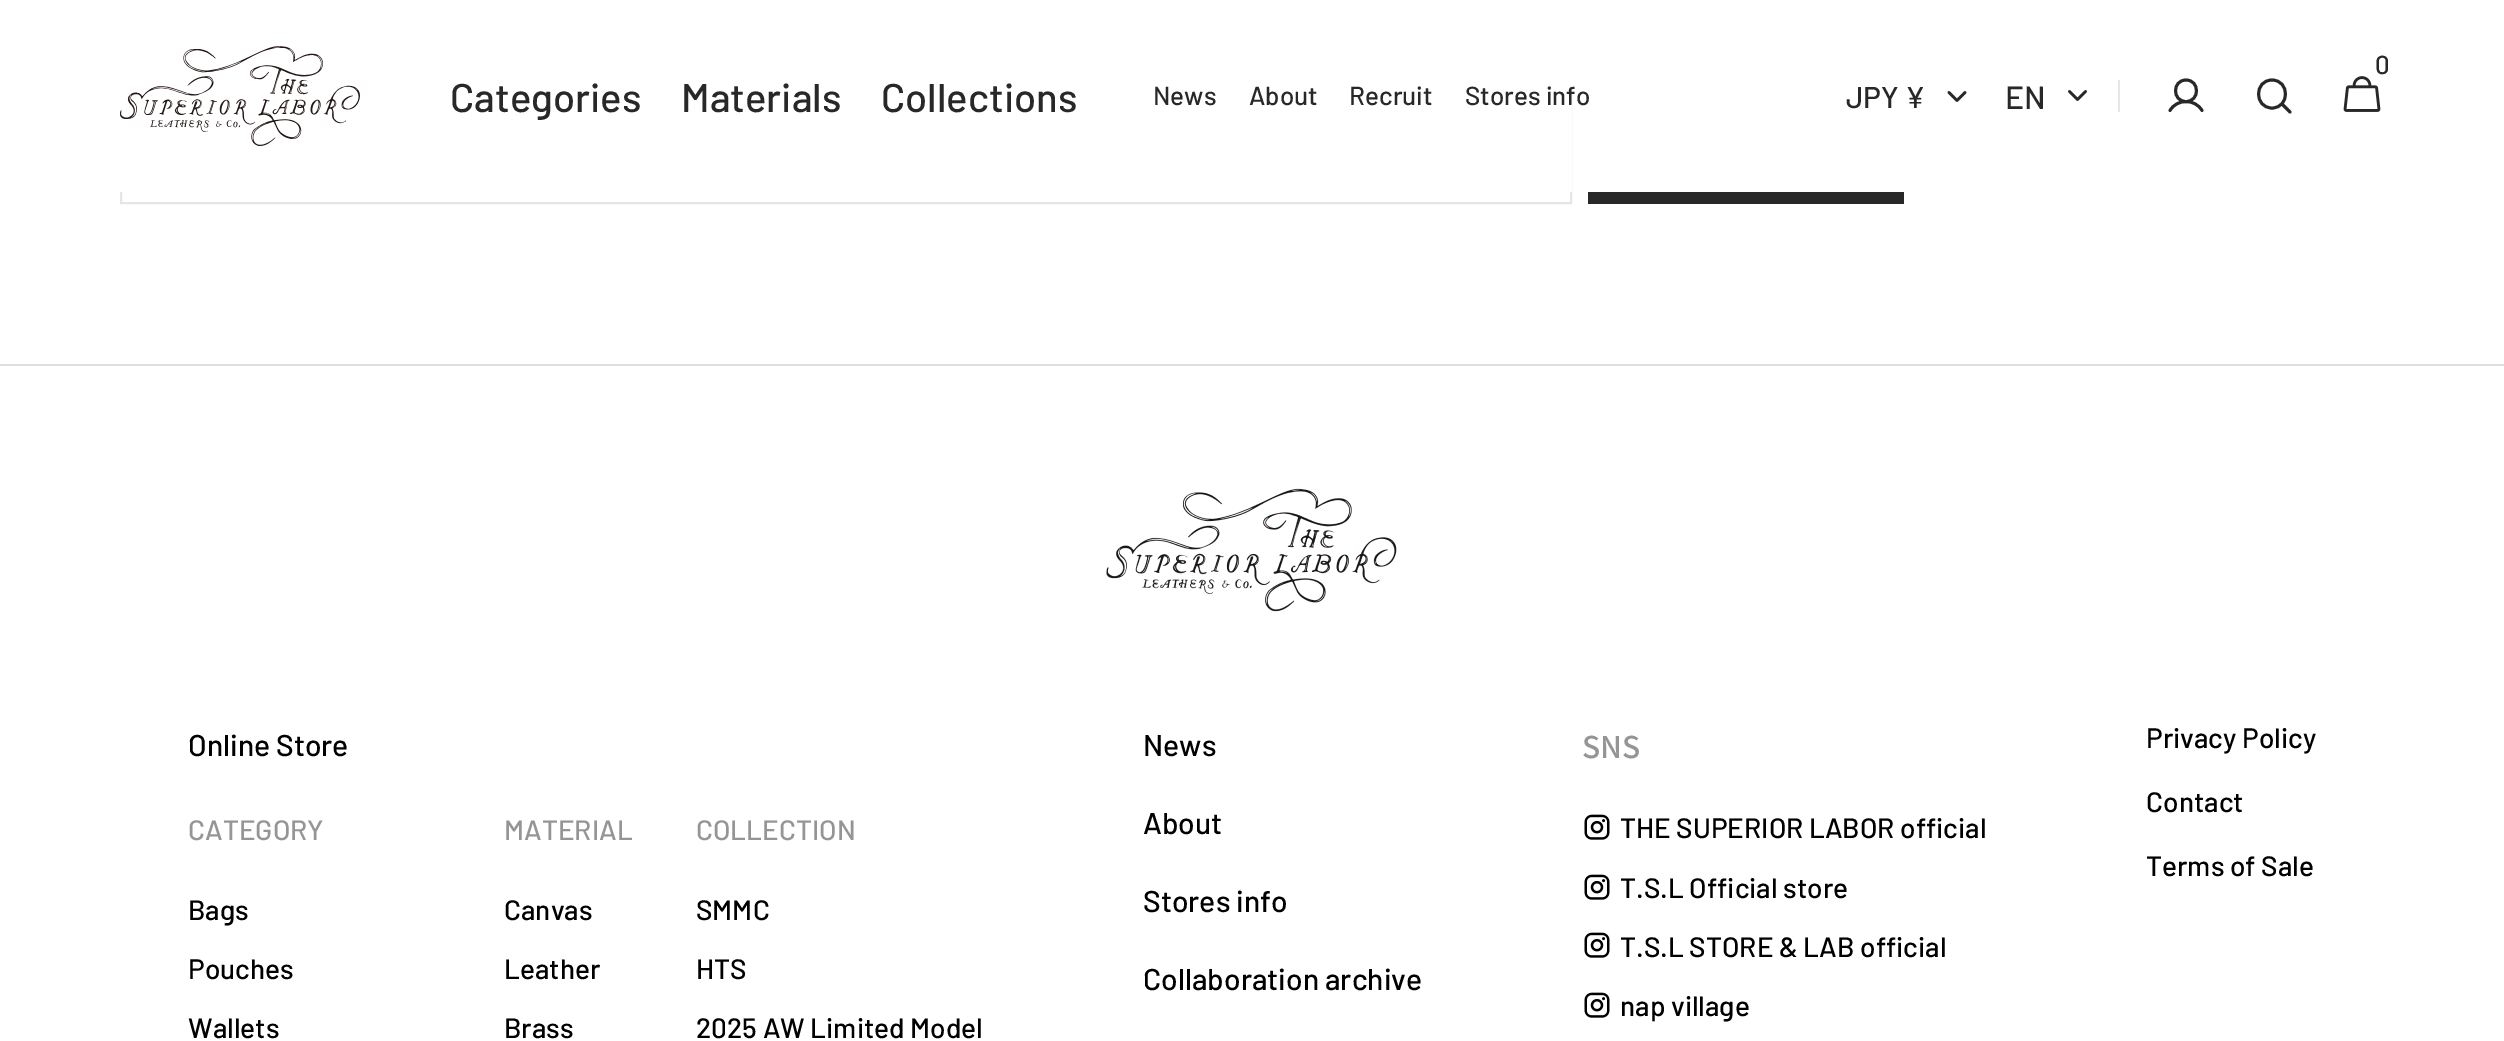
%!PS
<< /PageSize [2504 1041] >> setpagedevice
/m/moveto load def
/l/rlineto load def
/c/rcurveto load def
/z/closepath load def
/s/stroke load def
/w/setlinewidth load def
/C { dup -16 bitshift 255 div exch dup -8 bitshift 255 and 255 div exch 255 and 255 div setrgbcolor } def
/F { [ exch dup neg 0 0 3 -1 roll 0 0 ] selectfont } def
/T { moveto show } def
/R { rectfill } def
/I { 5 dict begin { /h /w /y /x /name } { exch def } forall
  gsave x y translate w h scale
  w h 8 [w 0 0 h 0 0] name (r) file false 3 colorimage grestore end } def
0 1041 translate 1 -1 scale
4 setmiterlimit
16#FFFFFF C
0 0 2504 1041 R
16#E5E5E5 C
2 w
121 93 1450 110 rectstroke
16#FFFFFF C
120 92 1452 100 R
(1.rgb) 120 46 240 100 I
/Barlow-Medium 40 F
16#282828 C
(Categories) 450 112 T
(Materials) 681 112 T
(Collections) 881 112 T
/Barlow-Medium 26 F
(News) 1153 105 T
(About) 1249 105 T
(Recruit) 1349 105 T
(Stores info) 1465 105 T
(0) 2375 74 T
(2.rgb) 2343 76 38 36 I
/Barlow-Medium 30 F
(JPY ¥) 1846 108 T
2.6 w
1 setlinecap
1 setlinejoin
1965 92.5 m -8 8 l -8 -8 l s
/Barlow-Medium 32 F
(EN) 2005 109 T
2085.5 91.5 m -8 8 l -8 -8 l s
16#E5E5E5 C
2118 80 2 32 R
16#282828 C
2.9 w
0 setlinecap
0 setlinejoin
2186 101.5 m 14 0 14 -21.5 0 -21.5 c -14 0 -14 21.5 0 21.5 c z s
1 setlinecap
1 setlinejoin
2170 110.5 m 7 -12 25 -12 32 0 c s
2272 108 m 18 0 18 -28 0 -28 c -18 0 -18 28 0 28 c z 2282 104 m 8 8 l s
1588 192 316 12 R
16#DFDFDF C
0 364 2504 2 R
(3.rgb) 1106 488 291 124 I
/Barlow-Medium 30 F
16#000000 C
(Online Store) 188 756 T
/Barlow-Medium 28 F
16#959595 C
(CATEGORY) 188 840 T
16#000000 C
(Bags) 188 920 T
(Pouches) 188 979 T
(Wallets) 188 1038 T
16#959595 C
(MATERIAL) 504 840 T
16#000000 C
(Canvas) 504 920 T
(Leather) 504 979 T
(Brass) 504 1038 T
16#959595 C
(COLLECTION) 696 840 T
16#000000 C
(SMMC) 696 920 T
(HTS) 696 979 T
(2025 AW Limited Model) 696 1038 T
/Barlow-Medium 30 F
(News) 1143 756 T
(About) 1143 834 T
(Stores info) 1143 912 T
(Collaboration archive) 1143 990 T
/NotoSansJP-Medium 30 F
16#959595 C
(SNS) 1582 758 T
(4.rgb) 1584 814 26 26 I
/Barlow-Medium 28 F
16#000000 C
(THE SUPERIOR LABOR official) 1620 838 T
(4.rgb) 1584 874 26 26 I
(T.S.L Official store) 1620 898 T
(4.rgb) 1584 932 26 26 I
(T.S.L STORE & LAB official) 1620 957 T
(4.rgb) 1584 992 26 26 I
(nap village) 1620 1016 T
(Privacy Policy) 2146 748 T
(Contact) 2146 812 T
(Terms of Sale) 2146 876 T
showpage
